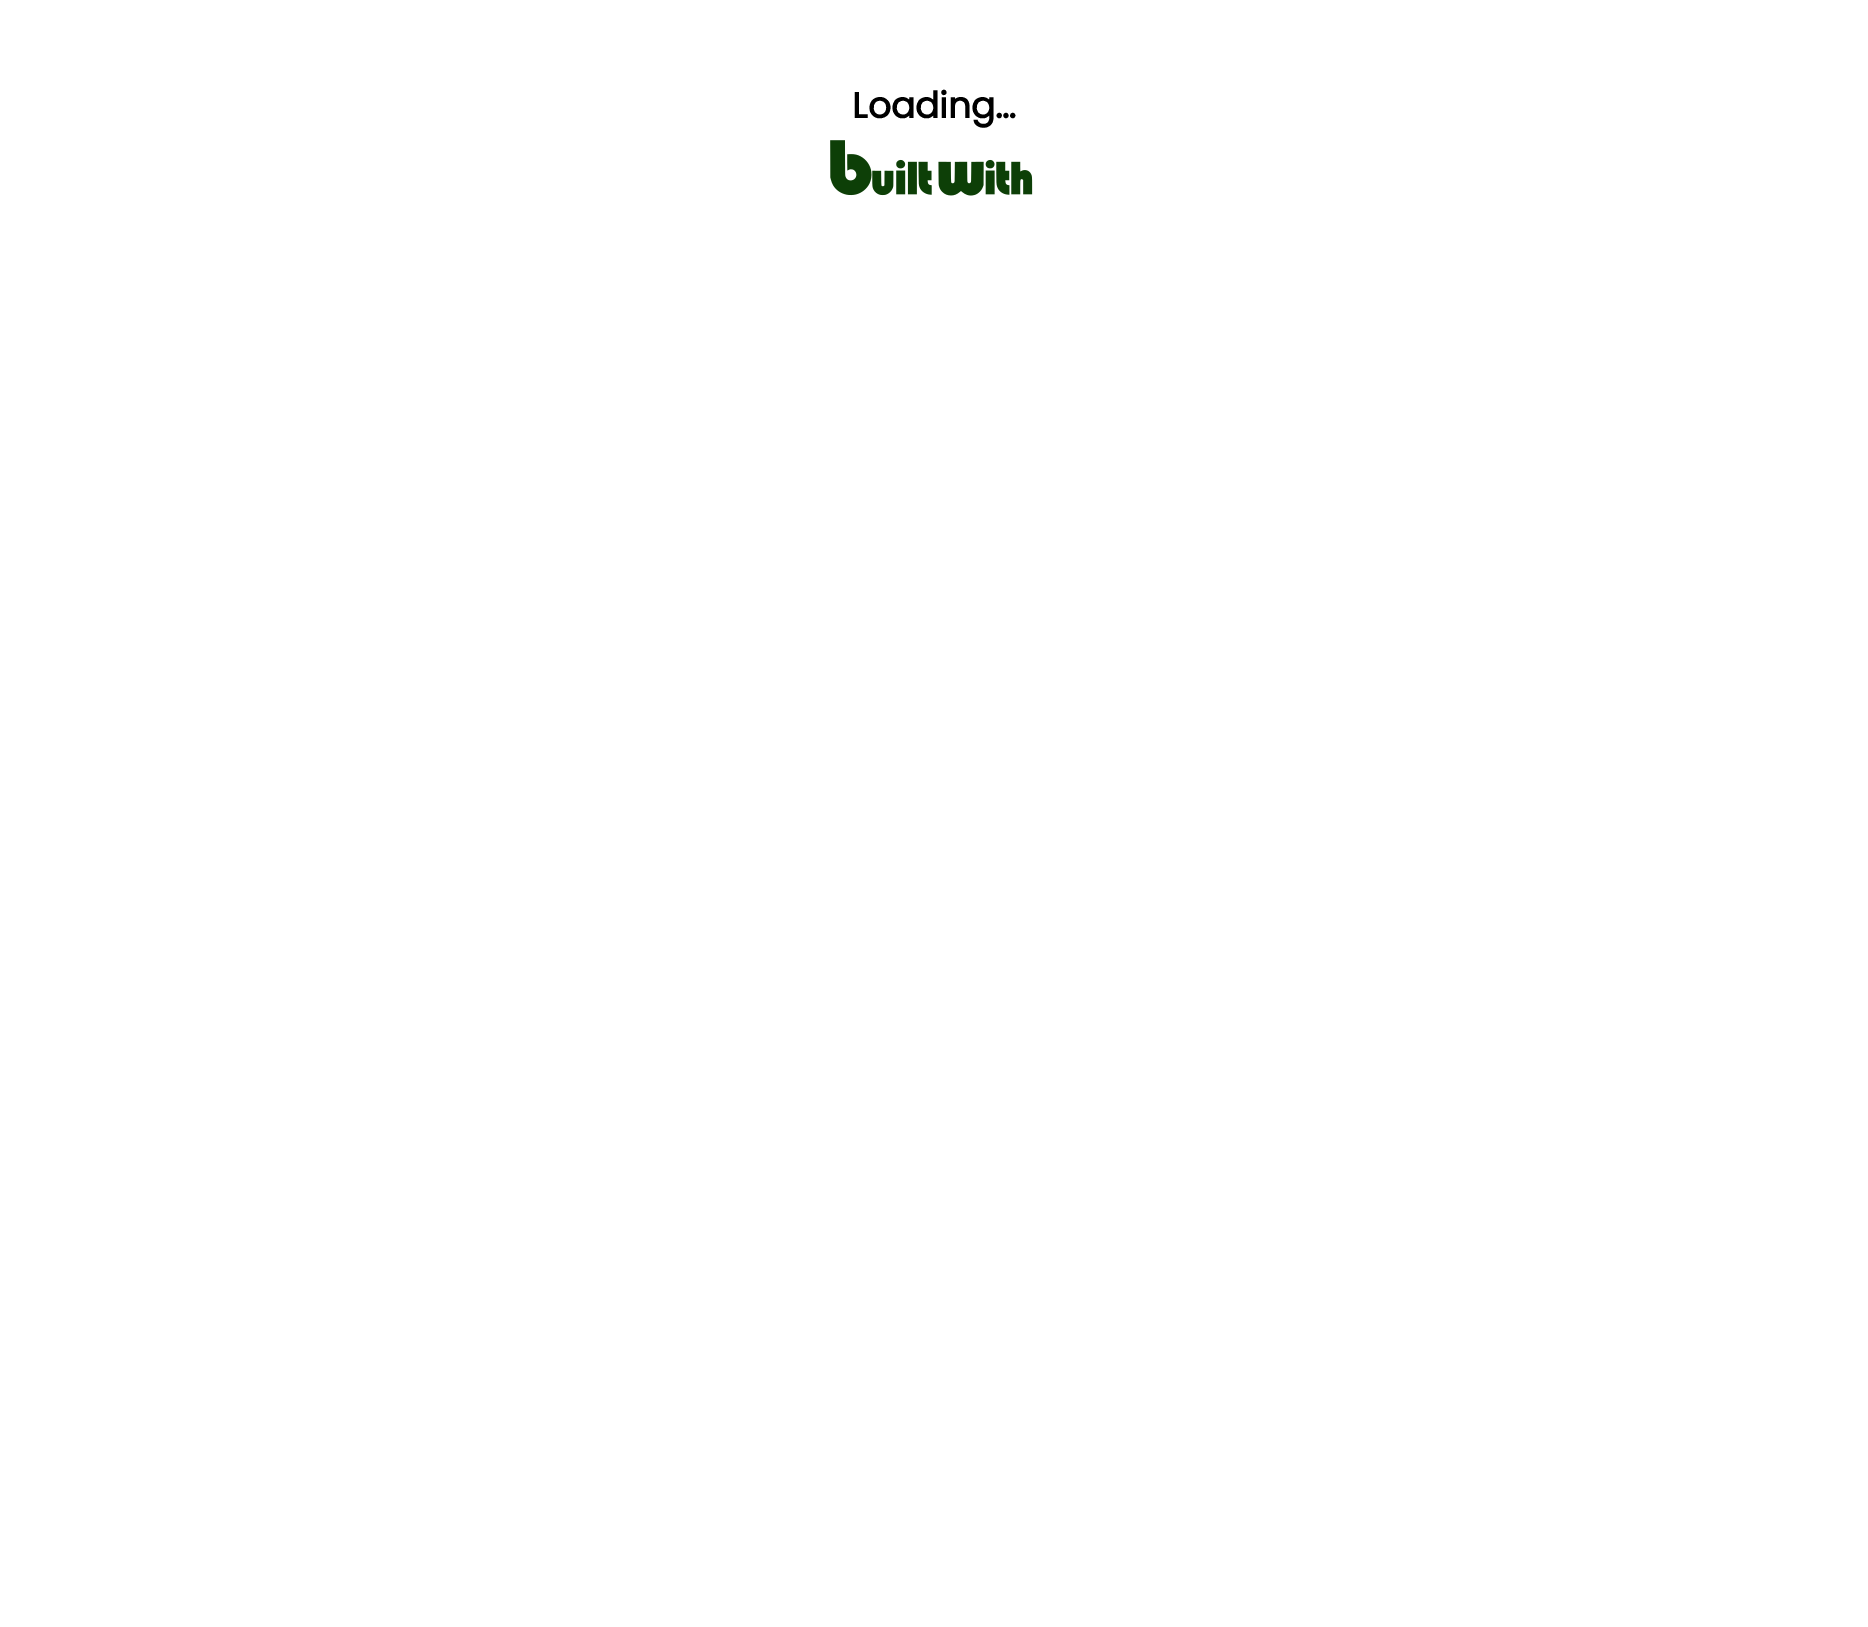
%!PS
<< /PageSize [1868 1627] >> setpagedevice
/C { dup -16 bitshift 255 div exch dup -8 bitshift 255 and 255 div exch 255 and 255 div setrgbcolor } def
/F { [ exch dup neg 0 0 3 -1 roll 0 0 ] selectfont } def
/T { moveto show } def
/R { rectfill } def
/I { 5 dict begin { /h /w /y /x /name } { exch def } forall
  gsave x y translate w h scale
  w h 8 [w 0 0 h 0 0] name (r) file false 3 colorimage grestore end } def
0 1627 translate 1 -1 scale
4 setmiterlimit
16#FFFFFF C
0 0 1868 1627 R
/Poppins-Bold 36 F
16#000000 C
(Loading…) 852 118 T
(1.rgb) 830 140 203 56 I
showpage
